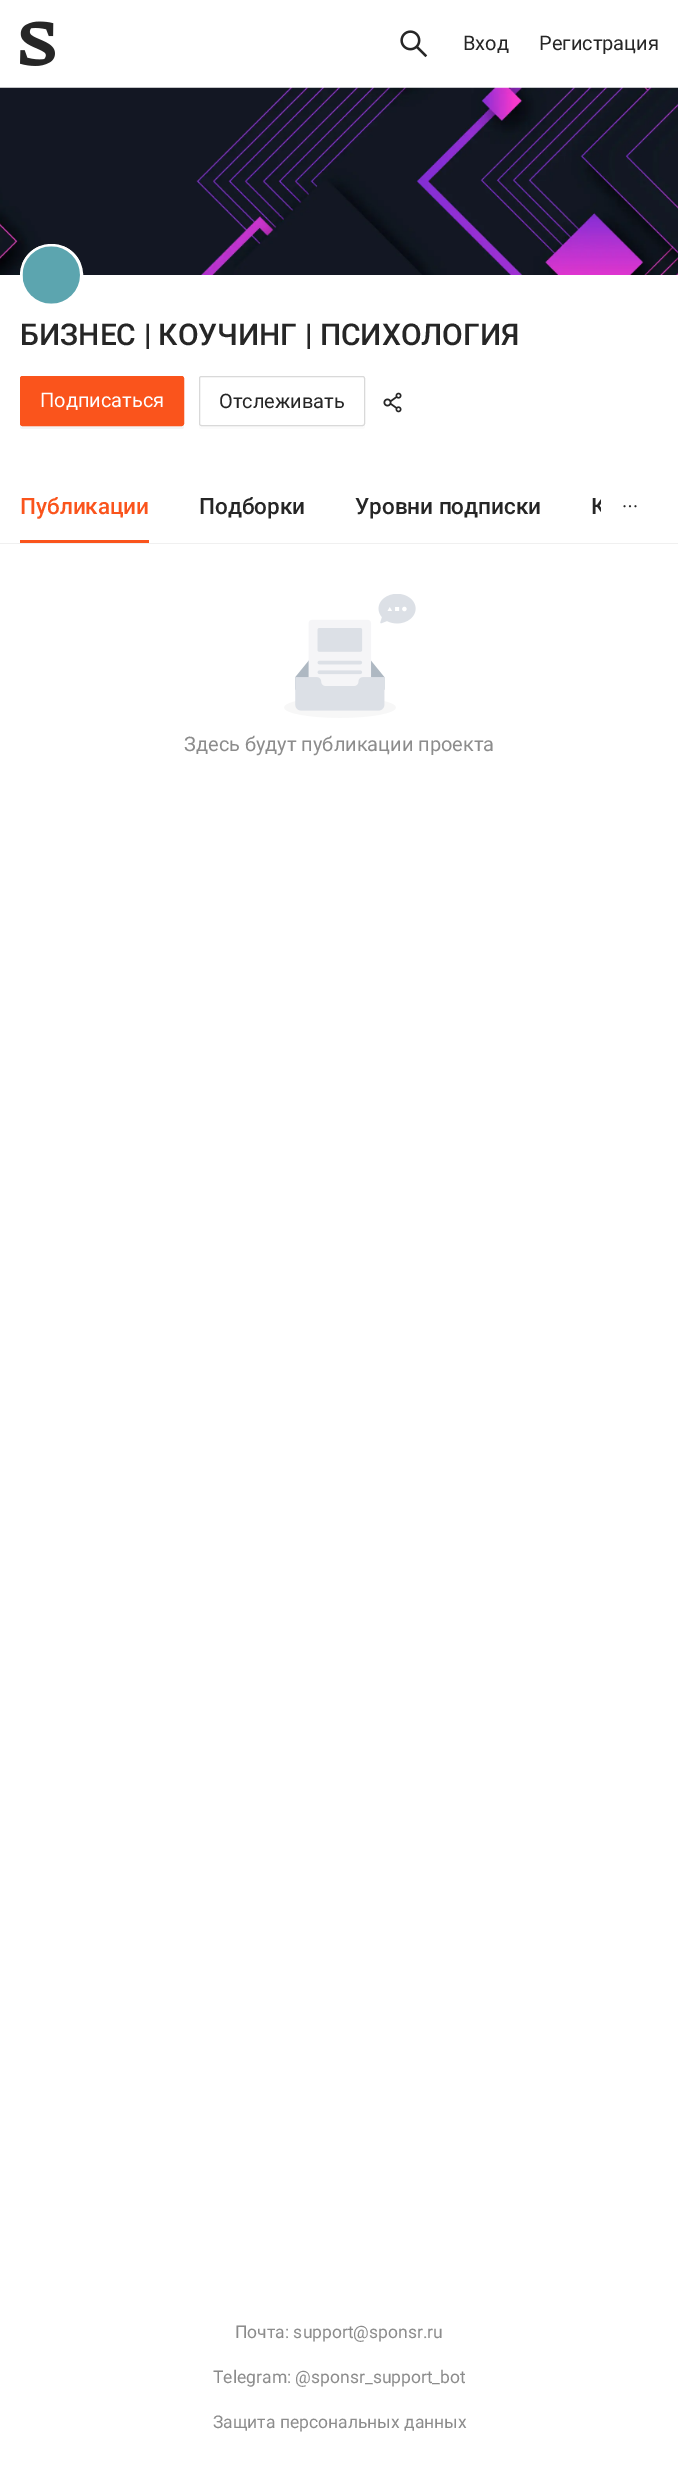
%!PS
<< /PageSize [678 2468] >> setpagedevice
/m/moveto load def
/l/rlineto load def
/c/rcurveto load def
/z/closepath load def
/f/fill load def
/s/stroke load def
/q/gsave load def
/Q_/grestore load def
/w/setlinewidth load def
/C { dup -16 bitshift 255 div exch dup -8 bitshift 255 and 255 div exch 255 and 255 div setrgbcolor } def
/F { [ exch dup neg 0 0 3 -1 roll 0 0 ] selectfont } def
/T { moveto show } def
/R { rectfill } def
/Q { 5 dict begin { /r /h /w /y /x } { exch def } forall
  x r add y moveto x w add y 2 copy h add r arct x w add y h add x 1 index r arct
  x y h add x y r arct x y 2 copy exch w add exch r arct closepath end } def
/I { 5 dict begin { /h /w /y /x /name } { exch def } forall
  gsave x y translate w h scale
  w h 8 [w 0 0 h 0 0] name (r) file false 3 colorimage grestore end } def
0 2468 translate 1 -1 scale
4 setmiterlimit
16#FFFFFF C
0 0 678 2468 R
(1.rgb) 20 21 35 45 I
(2.rgb) 400 30 28 28 I
/Roboto-Regular 20 F
16#262626 C
(Вход) 463 50 T
(Регистрация) 539 50 T
(3.rgb) 0 87 678 188 I
16#FFFFFF C
3 w
21.5 245.5 60 59 29.5 Q s
(4.rgb) 22 246 58 58 I
/Roboto-Medium 30 F
16#262626 C
(БИЗНЕС | КОУЧИНГ | ПСИХОЛОГИЯ) 20 345 T
16#F4F4F4 C
20 424 m 0 2 l 0 2 1 3 2 3 c 160 0 l 1 0 2 -1 2 -3 c 0 -46 l 0 44 l 0 1 -1 2 -3 2 c -159 0 l -1 0 -2 -1 -2 -2 c z f
16#FA541C C
20.5 376.5 163 49 2 Q q f Q_
1 w
s
/Roboto-Regular 20 F
16#FFFFFF C
(Подписаться) 40 407 T
16#FBFBFB C
199 425 m 0 1 l 0 2 1 3 3 3 c 160 0 l 2 0 3 -1 3 -3 c 0 -2 l 0 1 -1 2 -3 2 c -161 0 l -1 0 -2 0 -2 -1 c z f
16#D9D9D9 C
199.5 376.5 165 49 2 Q s
16#262626 C
(Отслеживать) 219 408 T
(5.rgb) 383 392 19 21 I
/Roboto-Medium 22.5 F
16#FA541C C
(Публикации) 20 514 T
16#262626 C
(Подборки) 199 514 T
(Уровни подписки) 355 514 T
q
20 471 581 72 rectclip
(К) 591 514 T
Q_
16#FA541C C
20 540 129 3 R
(6.rgb) 623 505 14 3 I
16#F0F0F0 C
0 543 678 1 R
(7.rgb) 284 594 132 124 I
/Roboto-Regular 20 F
16#8C8C8C C
(Здесь будут публикации проекта) 184 751 T
/Roboto-Regular 17.5 F
(Почта: support@sponsr.ru) 235 2338 T
(Telegram: @sponsr_support_bot) 213 2383 T
(Защита персональных данных) 213 2428 T
showpage
